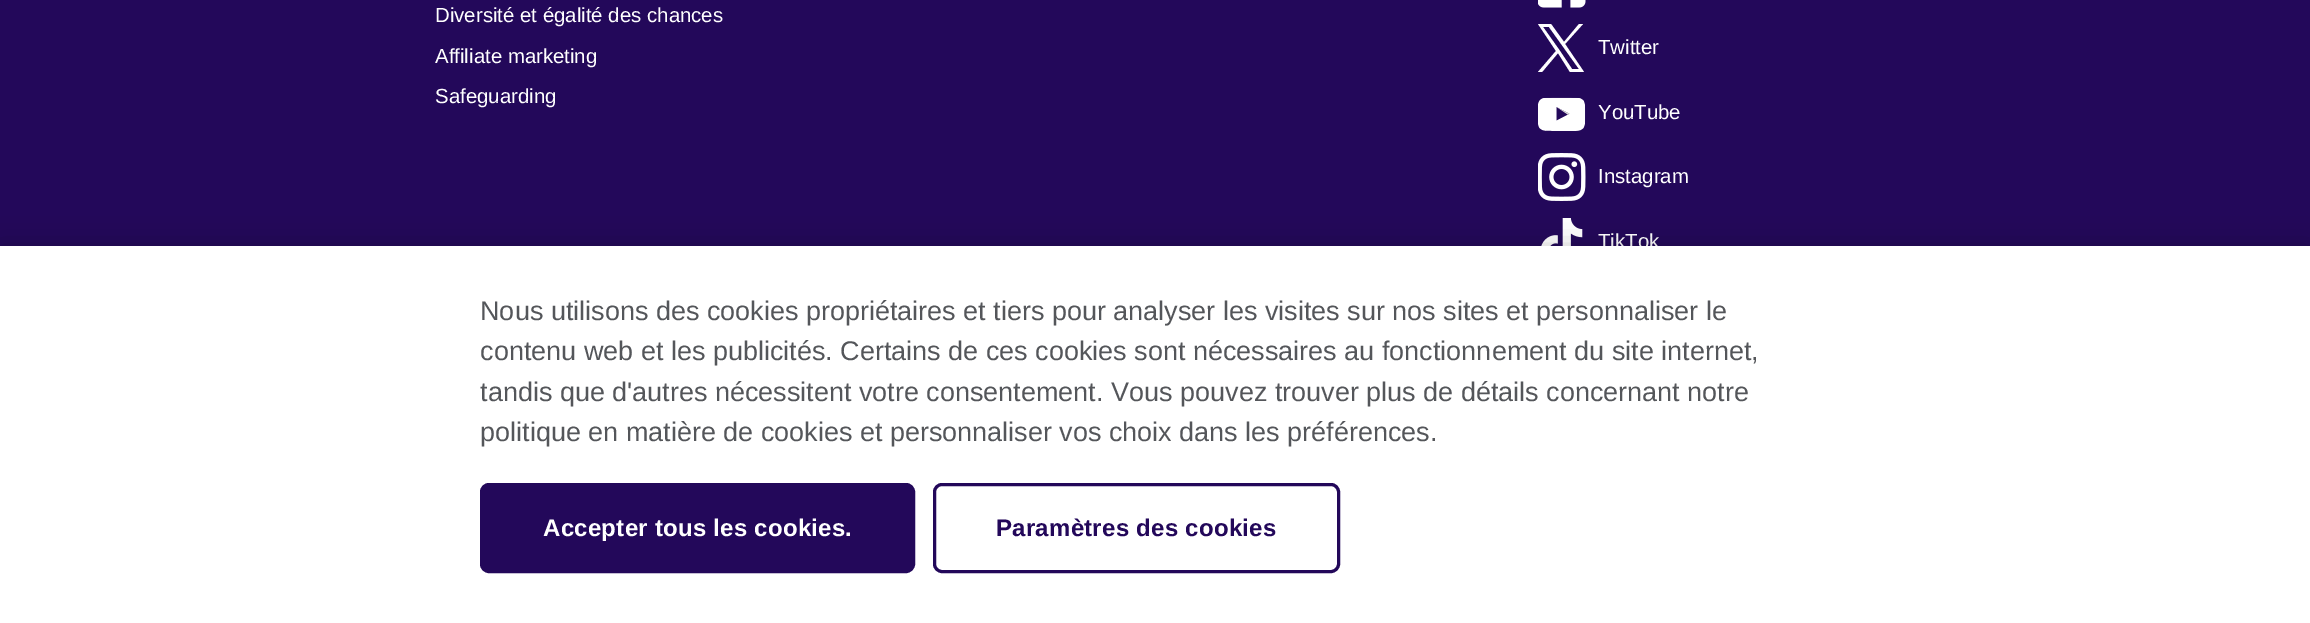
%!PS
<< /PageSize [2310 623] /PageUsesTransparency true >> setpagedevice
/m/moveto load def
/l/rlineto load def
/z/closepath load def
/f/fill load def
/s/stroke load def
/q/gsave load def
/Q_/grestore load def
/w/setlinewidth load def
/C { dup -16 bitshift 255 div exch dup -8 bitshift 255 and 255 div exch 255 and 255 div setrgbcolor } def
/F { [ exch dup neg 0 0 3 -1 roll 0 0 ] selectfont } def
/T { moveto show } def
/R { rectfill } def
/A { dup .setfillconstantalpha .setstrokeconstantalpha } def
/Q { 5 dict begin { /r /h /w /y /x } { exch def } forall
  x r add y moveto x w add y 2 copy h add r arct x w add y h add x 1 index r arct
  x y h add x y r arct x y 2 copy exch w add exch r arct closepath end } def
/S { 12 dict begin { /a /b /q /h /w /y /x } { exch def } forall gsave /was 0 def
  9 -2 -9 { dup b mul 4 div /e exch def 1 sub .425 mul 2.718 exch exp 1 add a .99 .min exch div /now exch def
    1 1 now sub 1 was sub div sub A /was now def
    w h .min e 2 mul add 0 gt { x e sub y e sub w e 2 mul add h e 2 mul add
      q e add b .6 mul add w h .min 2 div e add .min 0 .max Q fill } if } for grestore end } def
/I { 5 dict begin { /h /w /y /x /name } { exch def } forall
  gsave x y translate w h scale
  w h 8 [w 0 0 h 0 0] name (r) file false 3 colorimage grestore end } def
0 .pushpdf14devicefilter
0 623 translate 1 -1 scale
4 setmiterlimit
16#23085A C
0 0 2310 623 R
/LiberationSans-Regular 20.4 F
16#FFFFFF C
(Diversité et égalité des chances) 435 22 T
(Affiliate marketing) 435 63 T
(Safeguarding) 435 103 T
(1.rgb) 1538 0 48 8 I
1565 44 m 18 -20 l -4 0 l -15 18 l -13 -18 l -13 0 l 18 27 l -18 21 l 4 0 l 16 -19 l 12 19 l 14 0 l z 1560 51 m -17 -24 l 6 0 l 30 42 l -7 0 l z f
(Twitter) 1598 54 T
(2.rgb) 1538 97 48 34 I
(YouTube) 1598 119 T
(3.rgb) 1538 153 48 48 I
(Instagram) 1598 183 T
(4.rgb) 1541 218 42 28 I
(TikTok) 1598 248 T
16#000000 C
0 246 2310 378 0 13.5 .2 S
16#FFFFFF C
0 246 2310 377 R
/LiberationSans-Regular 27 F
16#54565A C
(Nous utilisons des cookies propriétaires et tiers pour analyser les visites sur nos sites et personnaliser le) 480 320 T
(contenu web et les publicités. Certains de ces cookies sont nécessaires au fonctionnement du site internet,) 480 360 T
(tandis que d'autres nécessitent votre consentement. Vous pouvez trouver plus de détails concernant notre) 480 401 T
(politique en matière de cookies et personnaliser vos choix dans les préférences.) 480 441 T
16#23085A C
481.5 484.5 432 87 7.5 Q q f Q_
3 w
s
/LiberationSans-Bold 24 F
16#FFFFFF C
543 536 m .25 0 (Accepter tous les cookies.) ashow
16#23085A C
934.5 484.5 404 87 7.5 Q s
996 536 m .25 0 (Paramètres des cookies) ashow
.poppdf14devicefilter showpage
